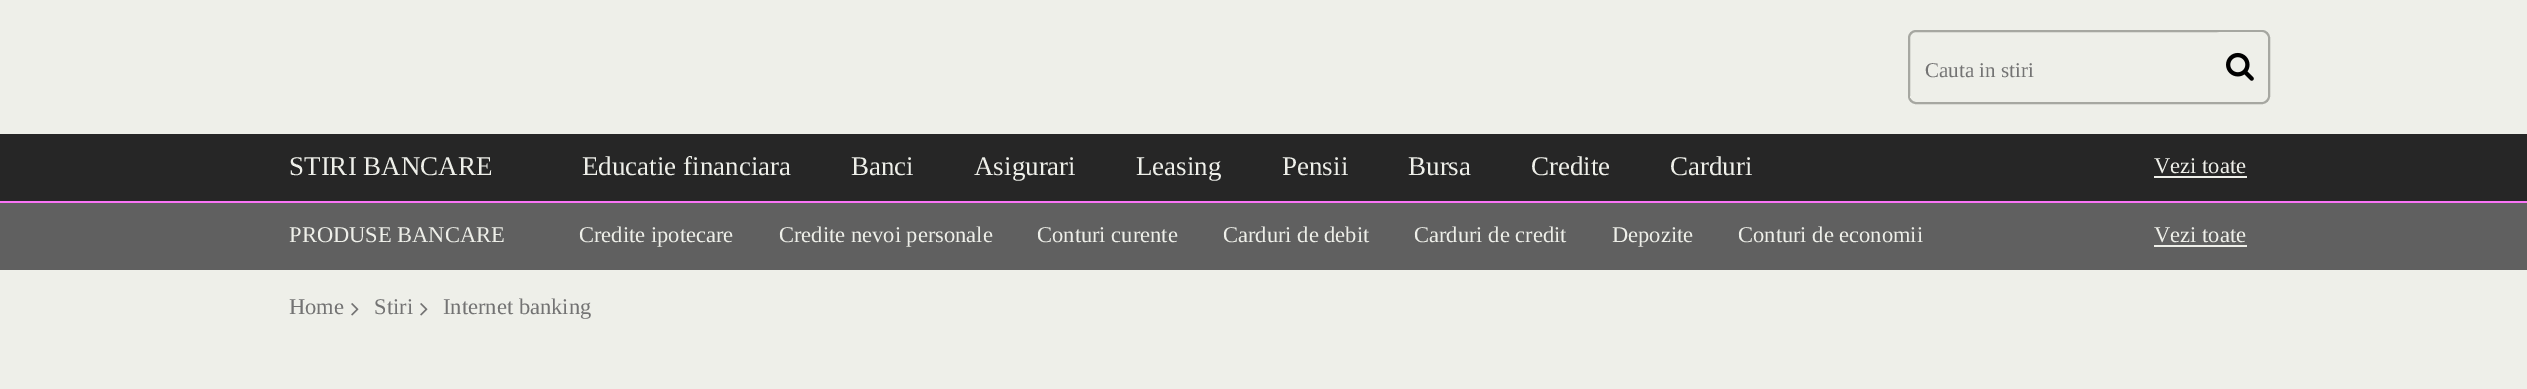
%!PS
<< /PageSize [2527 389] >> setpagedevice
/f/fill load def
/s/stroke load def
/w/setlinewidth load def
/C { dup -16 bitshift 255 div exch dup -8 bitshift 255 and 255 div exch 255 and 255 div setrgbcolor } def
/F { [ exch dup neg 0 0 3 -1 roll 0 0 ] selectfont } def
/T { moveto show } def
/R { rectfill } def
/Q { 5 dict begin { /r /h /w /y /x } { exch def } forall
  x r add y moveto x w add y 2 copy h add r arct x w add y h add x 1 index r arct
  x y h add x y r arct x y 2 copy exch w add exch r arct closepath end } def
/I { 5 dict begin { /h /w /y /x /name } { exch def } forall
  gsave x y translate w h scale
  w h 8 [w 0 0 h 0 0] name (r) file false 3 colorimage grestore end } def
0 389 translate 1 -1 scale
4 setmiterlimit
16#EEEFE9 C
0 0 2527 389 R
16#A6A7A1 C
2 w
1909 31 360 72 7 Q s
16#EEEFE9 C
1910 96 1 2 R
/LiberationSerif-Regular 21 F
16#737373 C
(Cauta in stiri) 1925 77 T
16#EEEFE9 C
2213 32 55 70 8 Q f
(1.rgb) 2226 52 28 29 I
16#262626 C
0 134 2527 67 R
16#FA74F7 C
0 201 2527 2 R
/LiberationSerif-Regular 27 F
16#EEEFE9 C
(STIRI BANCARE) 289 175 T
(Educatie financiara) 582 175 T
(Banci) 851 175 T
(Asigurari) 974 175 T
(Leasing) 1136 175 T
(Pensii) 1282 175 T
(Bursa) 1408 175 T
(Credite) 1531 175 T
(Carduri) 1670 175 T
/LiberationSerif-Regular 22.5 F
(Vezi toate) 2154 173 T
2154 176 93 2 R
16#606060 C
0 203 2527 67 R
16#EEEFE9 C
(PRODUSE BANCARE) 289 242 T
(Credite ipotecare) 579 242 T
(Credite nevoi personale) 779 242 T
(Conturi curente) 1037 242 T
(Carduri de debit) 1223 242 T
(Carduri de credit) 1414 242 T
(Depozite) 1612 242 T
(Conturi de economii) 1738 242 T
(Vezi toate) 2154 242 T
2154 245 93 2 R
16#737373 C
(Home) 289 314 T
(2.rgb) 351 303 8 13 I
(Stiri) 374 314 T
(2.rgb) 420 303 8 13 I
(Internet banking) 443 314 T
showpage
